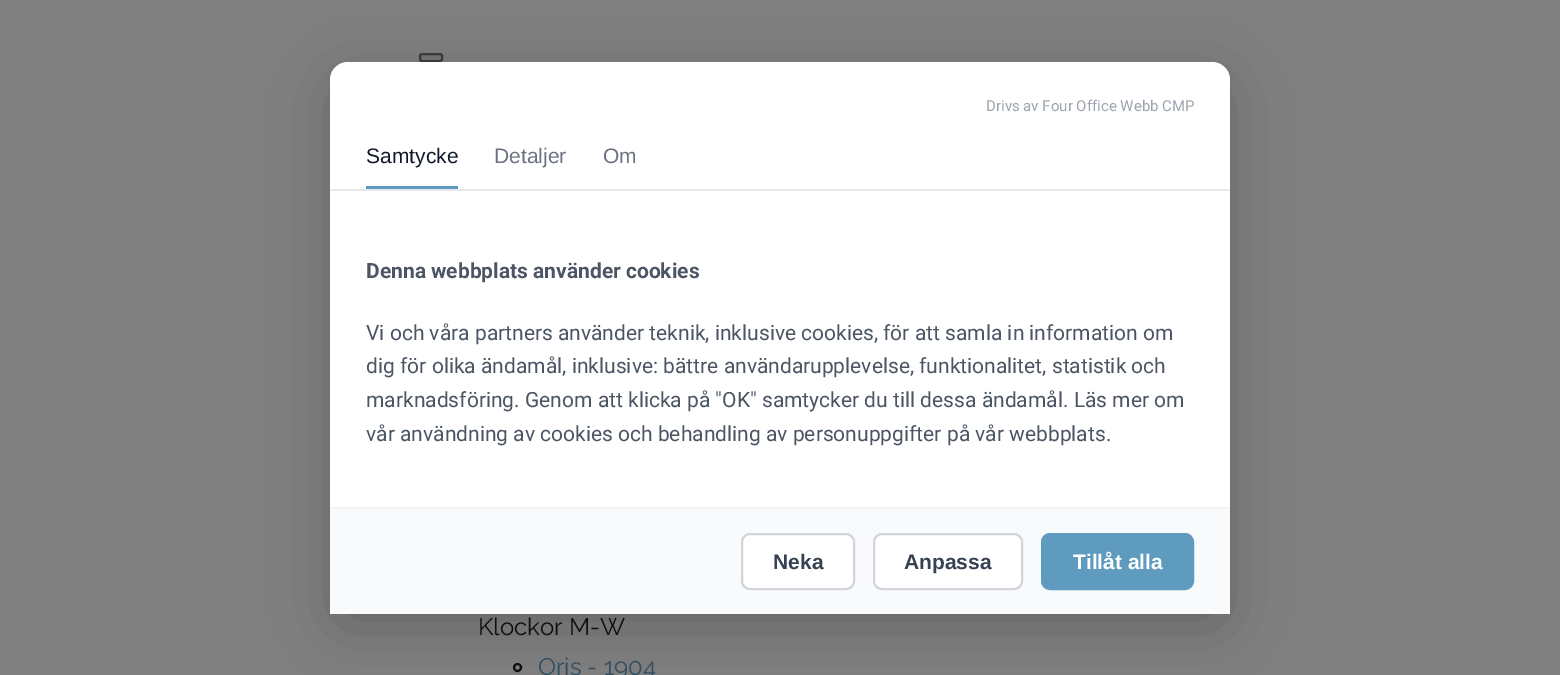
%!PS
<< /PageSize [1560 675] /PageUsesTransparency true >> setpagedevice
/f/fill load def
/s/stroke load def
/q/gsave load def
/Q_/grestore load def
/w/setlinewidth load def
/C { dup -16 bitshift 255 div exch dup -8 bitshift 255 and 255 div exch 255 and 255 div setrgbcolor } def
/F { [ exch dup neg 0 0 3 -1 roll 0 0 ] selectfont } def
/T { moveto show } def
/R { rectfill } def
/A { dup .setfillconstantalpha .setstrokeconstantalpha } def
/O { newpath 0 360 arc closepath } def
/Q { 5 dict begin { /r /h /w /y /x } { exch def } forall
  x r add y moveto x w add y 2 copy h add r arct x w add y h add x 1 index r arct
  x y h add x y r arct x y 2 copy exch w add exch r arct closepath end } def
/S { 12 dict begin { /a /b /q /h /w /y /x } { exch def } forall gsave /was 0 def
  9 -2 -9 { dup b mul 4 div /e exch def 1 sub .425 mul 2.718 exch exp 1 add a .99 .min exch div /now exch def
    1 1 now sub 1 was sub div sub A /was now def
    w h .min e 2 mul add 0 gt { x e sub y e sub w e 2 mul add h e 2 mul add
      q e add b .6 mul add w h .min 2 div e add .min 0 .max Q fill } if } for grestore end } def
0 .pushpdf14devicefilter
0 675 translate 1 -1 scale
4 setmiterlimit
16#808080 C
0 0 1560 675 R
16#787878 C
420 54 22 7 2 Q q f Q_
16#3B3B3B C
2 w
s
16#0F100D C
517.5 667.5 3.5 O s
16#000000 C
330 77 900 552 18 30 .2 S
16#FFFFFF C
330 62 900 552 18 Q f
/Roboto-Regular 15 F
16#9CA3AF C
(Drivs av Four Office Webb CMP) 986 111 T
16#E5E7EB C
330 189 900 2 R
16#5F9BBF C
366 186 92 3 R
/LiberationSans-Regular 21 F
16#111827 C
(Samtycke) 366 163 T
16#6B7280 C
(Detaljer) 494 163 T
(Om) 603 163 T
/Roboto-Bold 21 F
16#4B5563 C
(Denna webbplats använder cookies) 366 278 T
/Roboto-Regular 21 F
(Vi och våra partners använder teknik, inklusive cookies, för att samla in information om) 366 340 T
(dig för olika ändamål, inklusive: bättre användarupplevelse, funktionalitet, statistik och) 366 373 T
(marknadsföring. Genom att klicka på "OK" samtycker du till dessa ändamål. Läs mer om) 366 407 T
(vår användning av cookies och behandling av personuppgifter på vår webbplats.) 366 441 T
16#F9FAFB C
330 509 900 105 R
16#F3F4F6 C
330 507 900 2 R
16#FFFFFF C
742 534 112 55 8 Q q f Q_
16#D1D5DB C
s
/LiberationSans-Bold 21 F
16#374151 C
(Neka) 773 569 T
16#FFFFFF C
874 534 148 55 8 Q q f Q_
16#D1D5DB C
s
16#374151 C
(Anpassa) 904 569 T
16#5F9BBF C
1042 534 151 55 8 Q q f Q_
s
16#FFFFFF C
(Tillåt alla) 1073 569 T
/Raleway-Regular 24 F
16#0F100D C
(Klockor M-W) 478 635 T
16#304E60 C
(Oris - 1904) 538 675 T
.poppdf14devicefilter showpage
